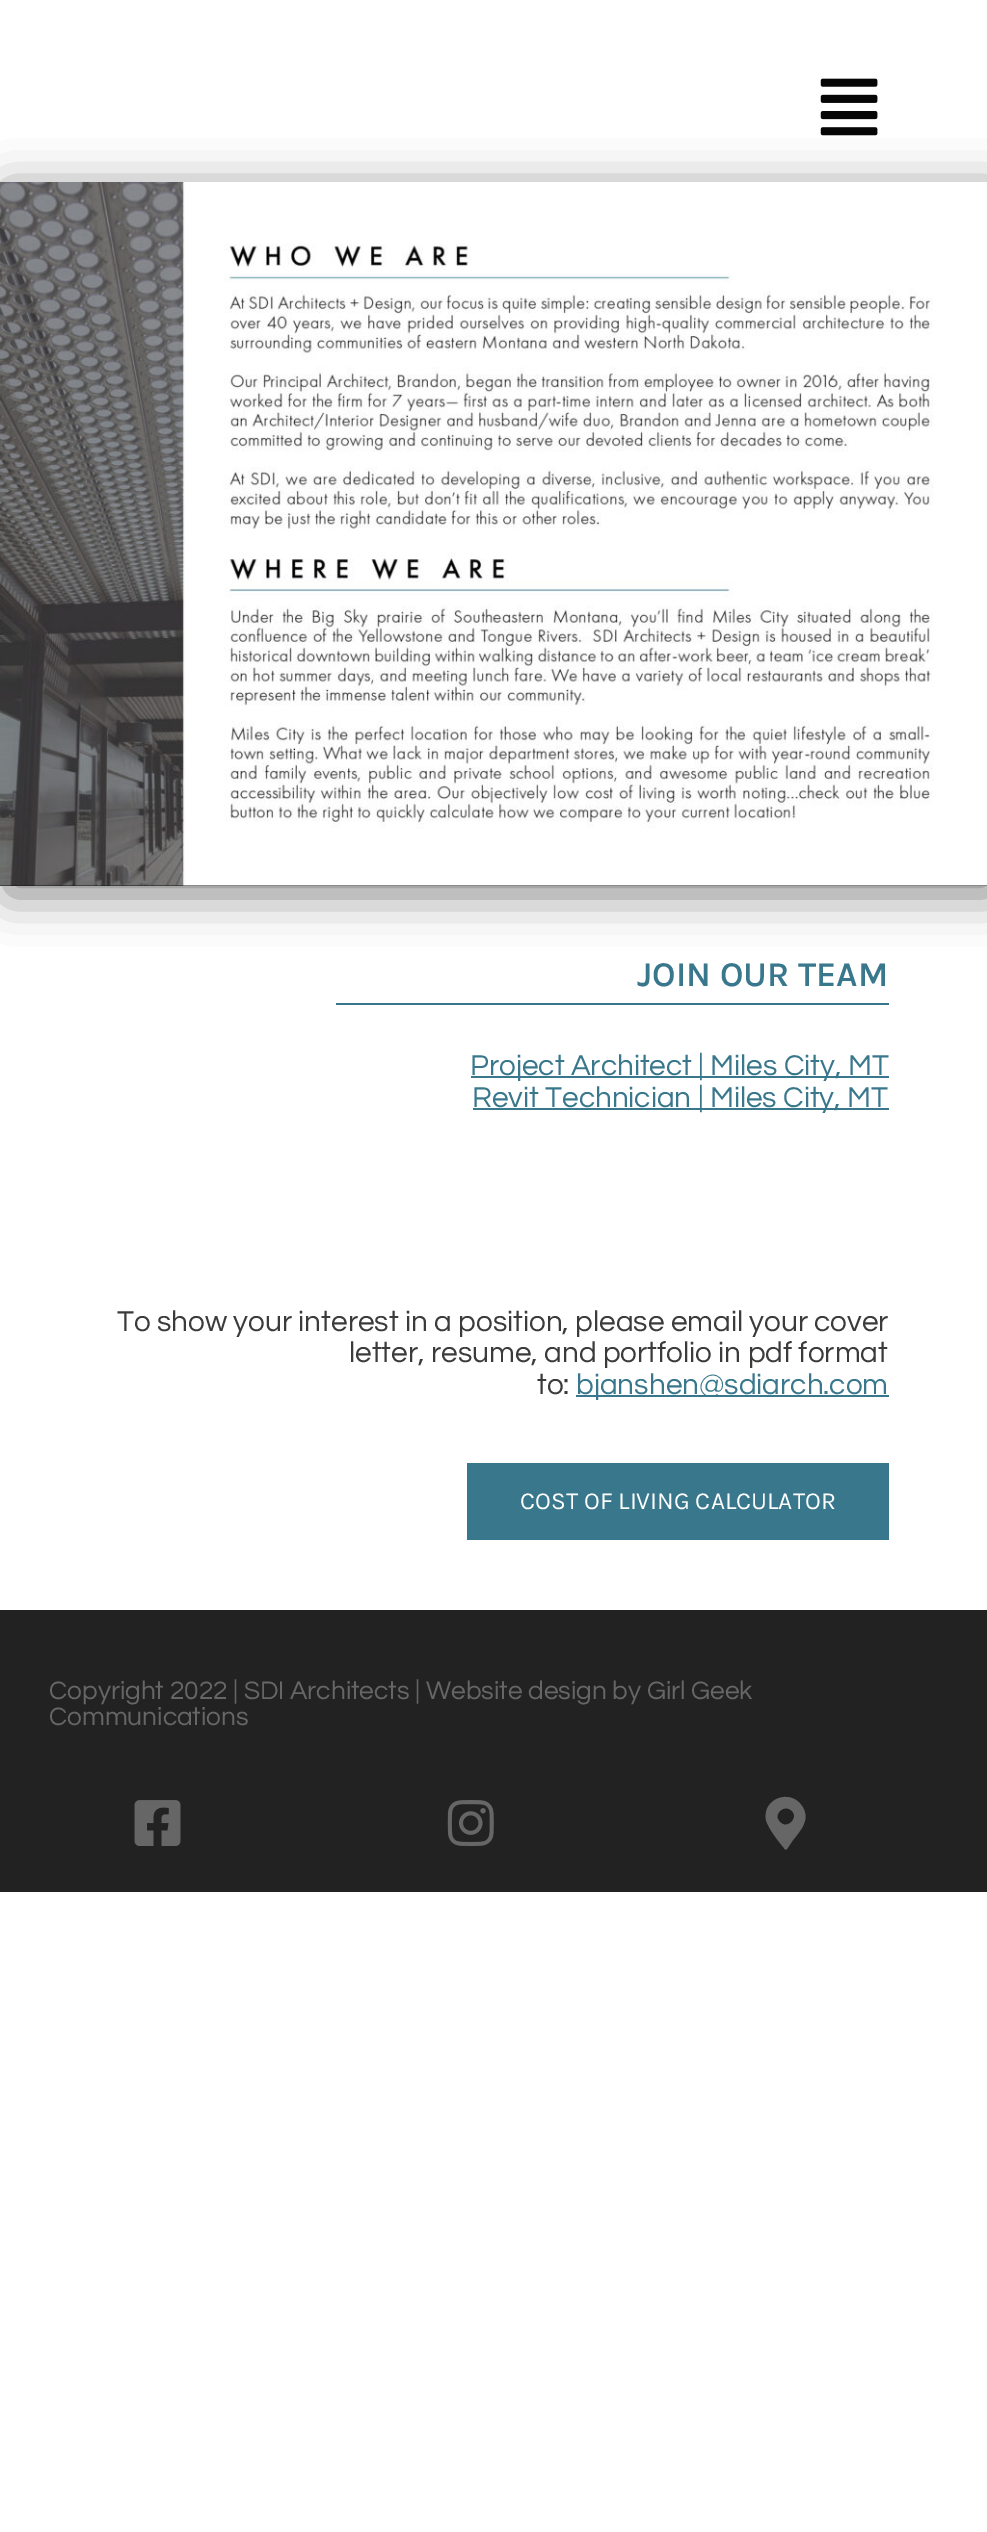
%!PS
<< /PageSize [987 2532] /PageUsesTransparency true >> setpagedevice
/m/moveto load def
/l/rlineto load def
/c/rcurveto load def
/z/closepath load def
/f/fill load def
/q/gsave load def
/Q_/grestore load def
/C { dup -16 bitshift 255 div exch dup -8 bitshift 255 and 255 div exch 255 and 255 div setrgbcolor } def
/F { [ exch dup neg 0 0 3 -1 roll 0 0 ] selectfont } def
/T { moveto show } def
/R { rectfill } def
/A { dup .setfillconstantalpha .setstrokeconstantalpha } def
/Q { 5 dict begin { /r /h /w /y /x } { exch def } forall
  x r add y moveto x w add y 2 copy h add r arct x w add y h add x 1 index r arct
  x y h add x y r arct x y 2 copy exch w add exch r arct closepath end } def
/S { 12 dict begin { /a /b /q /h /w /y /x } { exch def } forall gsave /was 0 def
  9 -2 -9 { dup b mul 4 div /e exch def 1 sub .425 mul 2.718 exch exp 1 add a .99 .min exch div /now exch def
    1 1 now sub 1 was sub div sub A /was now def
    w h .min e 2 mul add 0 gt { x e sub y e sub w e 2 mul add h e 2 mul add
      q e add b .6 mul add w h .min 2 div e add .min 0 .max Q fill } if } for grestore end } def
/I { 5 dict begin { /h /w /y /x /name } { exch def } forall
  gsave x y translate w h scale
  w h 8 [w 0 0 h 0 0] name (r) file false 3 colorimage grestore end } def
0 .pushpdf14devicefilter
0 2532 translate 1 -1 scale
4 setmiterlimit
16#FFFFFF C
0 0 987 2532 R
q 0 885 m 987 0 l 0 1 l -987 0 l z clip newpath
<< /ShadingType 2 /ColorSpace /DeviceRGB /Coords [494 182 494 886] /Extend [true true] /Function << /FunctionType 2 /Domain [0 1] /C0 [.612 .612 .612] /C1 [.09 .09 .09] /N 1 >> >> shfill Q_
16#000000 C
7 191 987 703 0 23.5 .5 S
(1.rgb) 820 78 58 58 I
(2.rgb) 0 182 987 704 I
/Karla-SemiBold 35 F
16#38778C C
(JOIN OUR TEAM) 637 986 T
336 1003 553 2 R
471 1076 418 2 R
/Questrial-Regular 29.75 F
(Project Architect | Miles City, MT) 470 1075 T
473 1108 416 2 R
(Revit Technician | Miles City, MT) 472 1107 T
16#3C3A3A C
(To show your interest in a position, please email your cover) 117 1331 T
(letter, resume, and portfolio in pdf format) 349 1362 T
(to:) 537 1394 T
16#38778C C
576 1395 313 2 R
(bjanshen@sdiarch.com) 576 1394 T
467 1463 422 77 R
/Karla-Regular 24.5 F
16#FFFFFF C
(COST OF LIVING CALCULATOR) 520 1509 T
16#222222 C
0 1610 987 282 R
/Questrial-Regular 26.25 F
16#666666 C
(Copyright 2022 | SDI Architects | Website design by Girl Geek) 49 1699 T
(Communications) 49 1725 T
(3.rgb) 134 1800 47 46 I
(4.rgb) 447 1800 47 46 I
784 1848 m -5 -6 -16 -20 -18 -28 c -4 -21 24 -32 36 -14 c 9 13 -1 24 -9 34 c -6 9 l -1 1 -3 0 -3 -1 c z 780 1822 m 7 8 19 -4 12 -11 c -8 -8 -20 4 -12 11 c z f
.poppdf14devicefilter showpage
